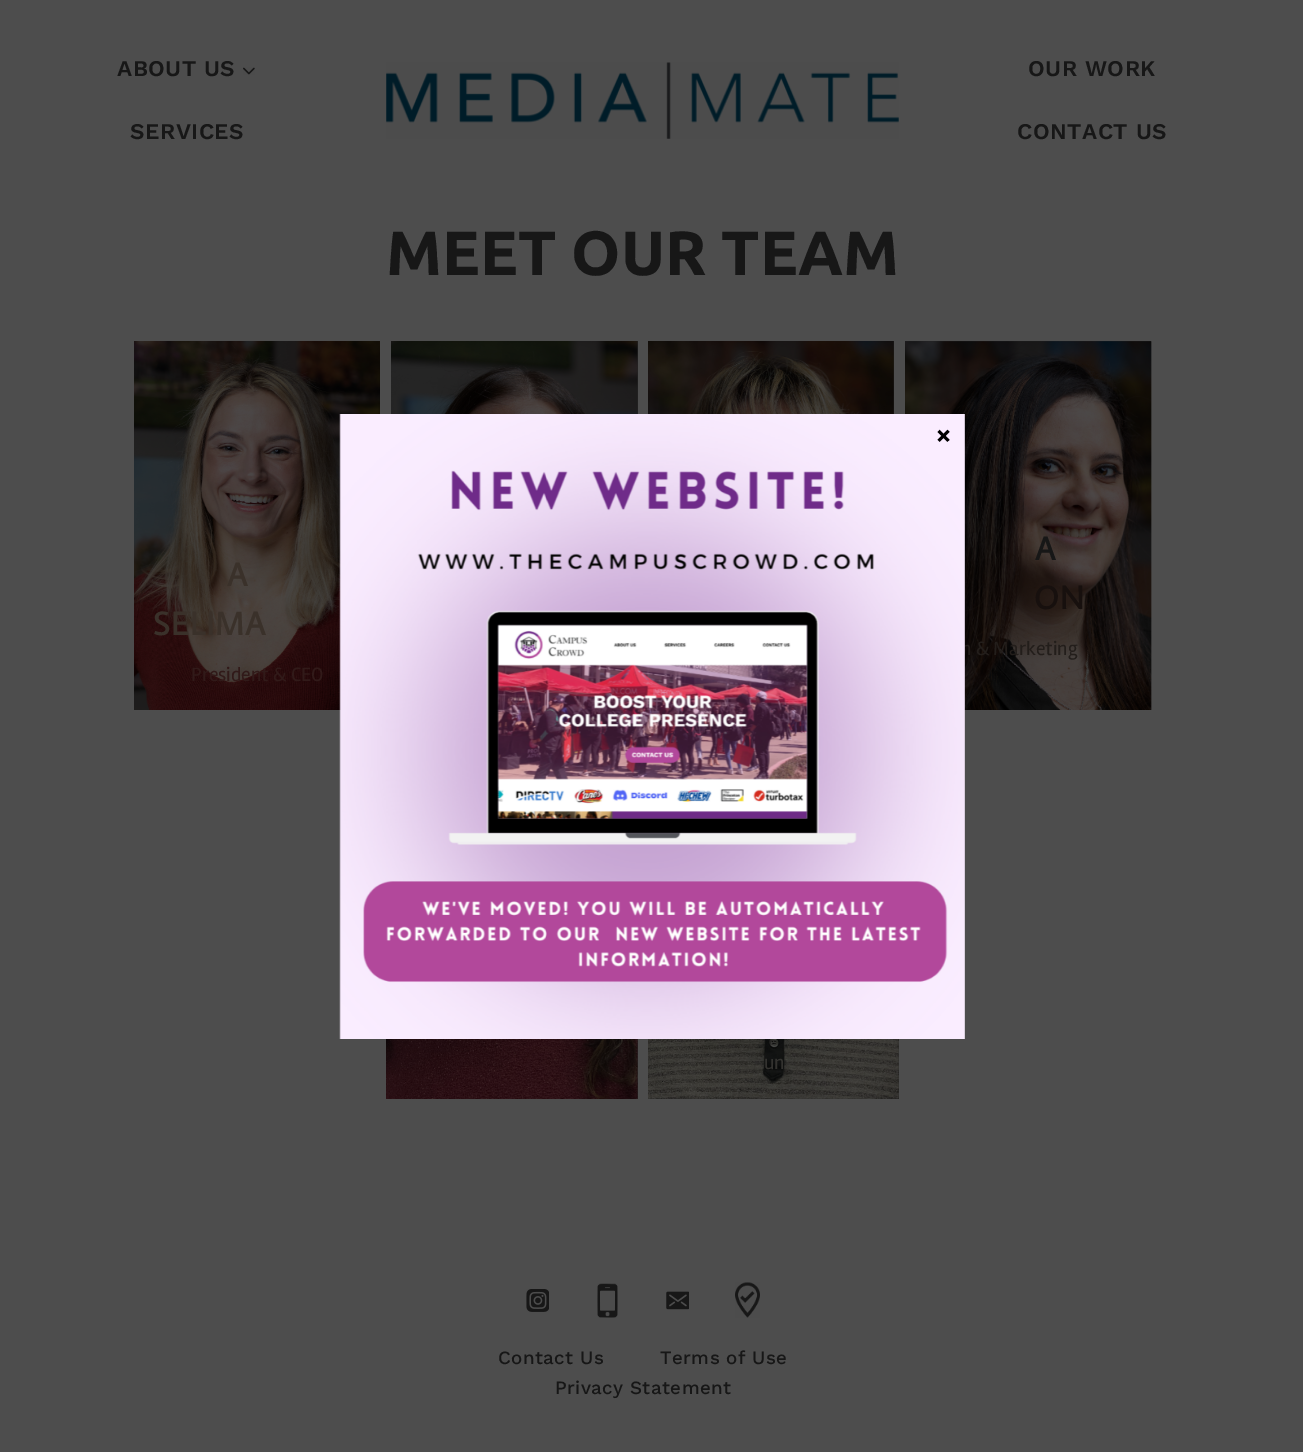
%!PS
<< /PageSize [1303 1452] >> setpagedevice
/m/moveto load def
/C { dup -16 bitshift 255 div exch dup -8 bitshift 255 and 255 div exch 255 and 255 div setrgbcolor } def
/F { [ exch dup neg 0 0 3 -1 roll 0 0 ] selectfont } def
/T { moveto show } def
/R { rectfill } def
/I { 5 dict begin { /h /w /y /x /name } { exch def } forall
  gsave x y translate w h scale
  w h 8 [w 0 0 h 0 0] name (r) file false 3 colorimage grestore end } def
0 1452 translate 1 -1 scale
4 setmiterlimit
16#4D4D4D C
0 0 1303 1452 R
/WorkSans-SemiBold 22.5 F
16#171717 C
117 76 m .5 0 (ABOUT US) ashow
(1.rgb) 243 67 12 8 I
130 139 m .5 0 (SERVICES) ashow
(2.rgb) 386 62 513 77 I
1028 76 m .5 0 (OUR WORK) ashow
1017 139 m .5 0 (CONTACT US) ashow
/Ubuntu-Bold 62.5 F
(MEET OUR TEAM) 386 275 T
16#242424 C
637 341 1 73 R
(3.rgb) 391 341 247 73 I
(4.rgb) 648 341 246 73 I
(5.rgb) 134 341 246 369 I
/AverageSans-Bold 32.5 F
16#3A312A C
227 586 m 1.25 0 (A) ashow
153 635 m 1.25 0 (SELIMA) ashow
/Rambla-Regular 20 F
16#311A19 C
(President & CEO) 191 681 T
(6.rgb) 905 341 247 369 I
/AverageSans-Bold 32.5 F
16#171717 C
1035 560 m 1.25 0 (A) ashow
16#17100E C
1034 609 m 1.25 0 (ON) ashow
/Rambla-Regular 20 F
16#231E1B C
(n & Marketing) 961 655 T
16#242424 C
637 1039 1 60 R
(7.rgb) 386 1039 252 60 I
648 1039 251 60 R
(8.rgb) 648 1039 251 60 I
16#33322F C
(un) 764 1069 T
(9.rgb) 526 1289 23 23 I
(10.rgb) 597 1283 21 35 I
(11.rgb) 666 1291 23 19 I
(12.rgb) 735 1282 25 36 I
/WorkSans-Medium 18.75 F
16#171717 C
498 1364 m .4 0 (Contact Us) ashow
660 1364 m .4 0 (Terms of Use) ashow
555 1394 m .4 0 (Privacy Statement) ashow
(13.rgb) 339 414 626 625 I
/WorkSans-Bold 25 F
16#000000 C
(×) 936 444 T
showpage
